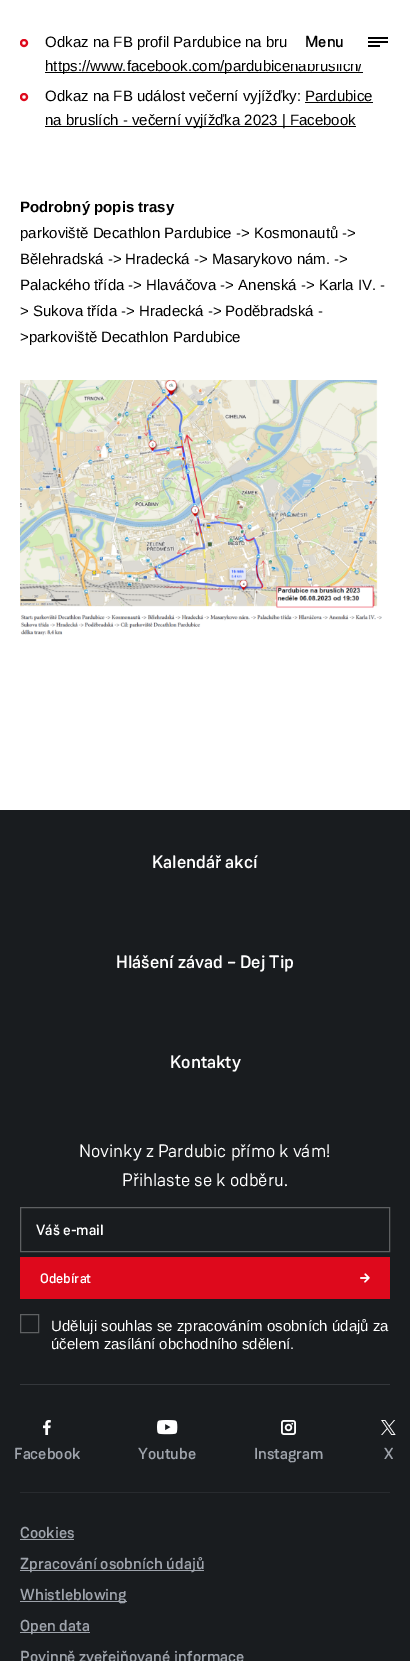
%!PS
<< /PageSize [410 1661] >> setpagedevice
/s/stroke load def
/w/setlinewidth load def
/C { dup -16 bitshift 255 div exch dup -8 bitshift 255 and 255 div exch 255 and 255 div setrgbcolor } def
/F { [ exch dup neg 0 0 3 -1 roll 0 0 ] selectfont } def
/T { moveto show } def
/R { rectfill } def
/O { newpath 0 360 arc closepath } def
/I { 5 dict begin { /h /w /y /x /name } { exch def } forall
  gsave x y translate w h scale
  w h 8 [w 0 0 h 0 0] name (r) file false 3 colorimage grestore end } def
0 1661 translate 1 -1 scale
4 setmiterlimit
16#FFFFFF C
0 0 410 1661 R
16#000000 C
45 72 318 1 R
/LiberationSans-Regular 15 F
(https://www.facebook.com/pardubicenabruslich/) 45 71 T
16#FFFFFF C
291 60 72 4 R
/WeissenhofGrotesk-Medium 15 F
16#000000 C
(Menu) 305 47 T
(1.rgb) 368 37 20 10 I
16#DE091C C
2 w
24 43 3 O s
/LiberationSans-Regular 15 F
16#000000 C
(Odkaz na FB profil Pardubice na bru) 45 47 T
16#DE091C C
24 97 3 O s
16#000000 C
(Odkaz na FB událost večerní vyjížďky: Pardubice) 45 101 T
305 102 68 1 R
45 126 311 1 R
(na bruslích - večerní vyjížďka 2023 | Facebook) 45 125 T
/LiberationSans-Bold 15 F
(Podrobný popis trasy) 20 212 T
/LiberationSans-Regular 15 F
(parkoviště Decathlon Pardubice -> Kosmonautů ->) 20 238 T
(Bělehradská -> Hradecká -> Masarykovo nám. ->) 20 264 T
(Palackého třída -> Hlaváčova -> Anenská -> Karla IV. -) 20 290 T
(> Sukova třída -> Hradecká -> Poděbradská -) 20 316 T
(>parkoviště Decathlon Pardubice) 20 342 T
(2.rgb) 20 380 362 256 I
16#191C1F C
0 810 410 851 R
/WeissenhofGrotesk-Medium 17 F
16#FFFFFF C
(Kalendář akcí) 152 868 T
(Hlášení závad – Dej Tip) 116 968 T
(Kontakty) 170 1068 T
/WeissenhofGrotesk-Regular 17 F
(Novinky z Pardubic přímo k vám!) 79 1157 T
(Přihlaste se k odběru.) 122 1186 T
16#5E6062 C
1 w
20.5 1207.5 369 44 rectstroke
/WeissenhofGrotesk-Medium 14 F
16#FFFFFF C
(Váš e-mail) 36 1235 T
16#DE091C C
20 1257 370 42 R
/WeissenhofGrotesk-Medium 13 F
16#FFFFFF C
(Odebírat) 40 1283 T
(3.rgb) 360 1273 10 10 I
16#5E6062 C
20.5 1314.5 18 18 rectstroke
/LiberationSans-Regular 15 F
16#FFFFFF C
(Uděluji souhlas se zpracováním osobních údajů za) 51 1331 T
(účelem zasílání obchodního sdělení.) 51 1349 T
16#34373B C
20 1384 370 1 R
16#282B2F C
20 1492 370 1 R
(4.rgb) 43 1420 8 15 I
/WeissenhofGrotesk-Medium 15 F
16#9FA4AC C
(Facebook) 14 1459 T
(5.rgb) 157 1420 21 15 I
(Youtube) 138 1459 T
(6.rgb) 281 1420 15 15 I
(Instagram) 254 1459 T
(7.rgb) 381 1420 15 15 I
(X) 384 1459 T
(Cookies) 20 1538 T
20 1539 54 1 R
20 1570 184 1 R
(Zpracování osobních údajů) 20 1569 T
20 1601 107 1 R
(Whistleblowing) 20 1600 T
20 1632 70 1 R
(Open data) 20 1631 T
(Povinně zveřejňované informace) 20 1662 T
showpage
